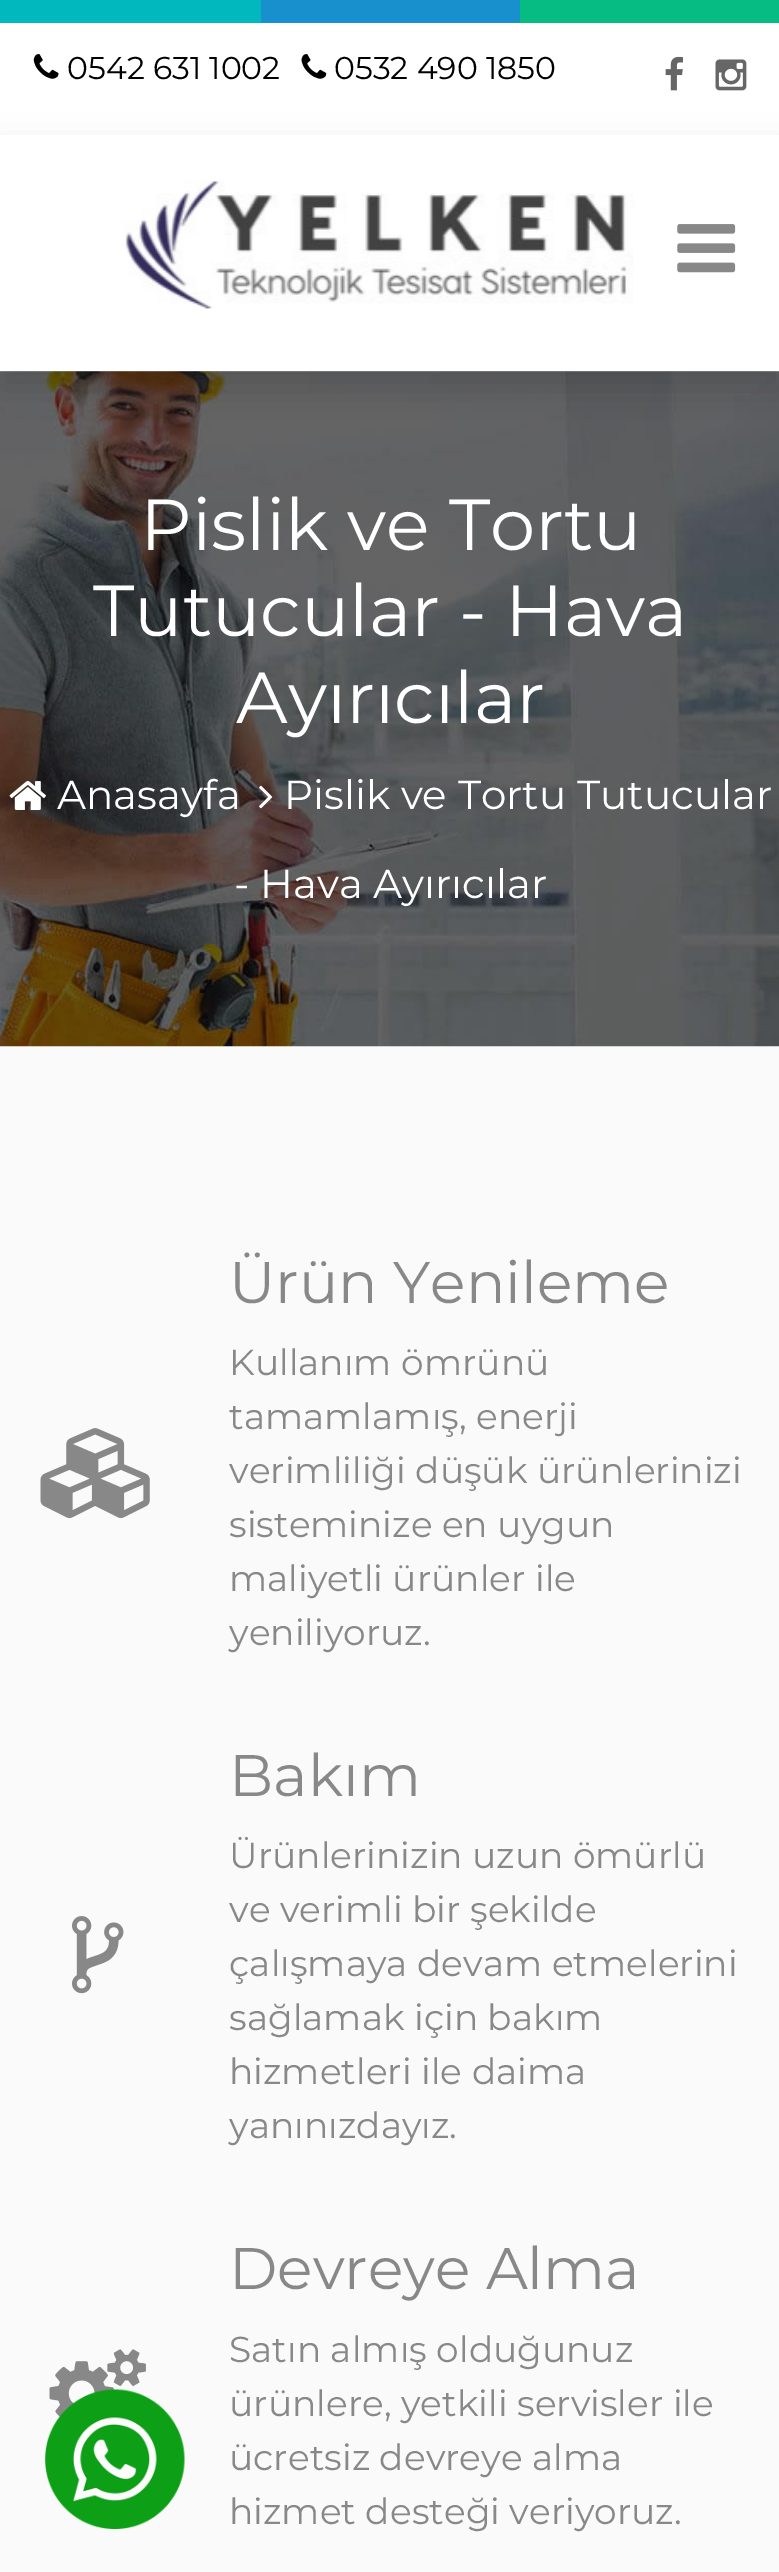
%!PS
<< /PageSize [779 2572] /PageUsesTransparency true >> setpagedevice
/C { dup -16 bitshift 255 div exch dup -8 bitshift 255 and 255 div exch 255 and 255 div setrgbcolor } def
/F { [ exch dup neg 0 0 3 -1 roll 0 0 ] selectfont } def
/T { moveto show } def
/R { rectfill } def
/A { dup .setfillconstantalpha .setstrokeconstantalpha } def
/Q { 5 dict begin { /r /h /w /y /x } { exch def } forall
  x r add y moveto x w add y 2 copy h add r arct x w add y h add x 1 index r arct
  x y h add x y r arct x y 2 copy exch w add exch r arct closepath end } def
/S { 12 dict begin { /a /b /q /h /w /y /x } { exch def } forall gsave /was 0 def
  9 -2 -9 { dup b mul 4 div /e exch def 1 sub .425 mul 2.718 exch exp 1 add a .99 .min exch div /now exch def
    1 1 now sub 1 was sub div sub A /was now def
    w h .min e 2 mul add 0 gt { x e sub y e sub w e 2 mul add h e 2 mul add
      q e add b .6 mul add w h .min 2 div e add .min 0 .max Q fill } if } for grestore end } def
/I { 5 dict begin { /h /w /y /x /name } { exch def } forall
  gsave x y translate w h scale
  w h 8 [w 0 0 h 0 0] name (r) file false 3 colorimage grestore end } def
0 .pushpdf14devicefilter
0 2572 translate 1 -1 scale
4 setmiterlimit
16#FAFAFA C
0 0 779 2572 R
16#02B8BF C
0 0 261 23 R
16#1990CE C
261 0 259 23 R
16#07BC83 C
520 0 259 23 R
16#FFFFFF C
0 23 779 112 R
(1.rgb) 33 54 26 25 I
/Montserrat-Regular 31.5 F
16#000000 C
(0542 631 1002) 67 79 T
(2.rgb) 301 54 26 25 I
(0532 490 1850) 334 79 T
(3.rgb) 665 56 18 35 I
(4.rgb) 715 59 32 32 I
(7.rgb) 0 371 779 676 I
0 153 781 236 0 18 .15 S
16#FFFFFF C
0 135 779 236 R
(5.rgb) 122 180 512 129 I
(6.rgb) 677 224 59 49 I
/Montserrat-Regular 72 F
(Pislik ve Tortu) 140 550 T
(Tutucular - Hava) 93 636 T
(Ayırıcılar) 236 723 T
(8.rgb) 9 781 37 29 I
/Montserrat-Regular 40.5 F
(Anasayfa) 57 809 T
(9.rgb) 259 785 14 24 I
(Pislik ve Tortu Tutucular) 284 809 T
(- Hava Ayırıcılar) 234 898 T
(13.rgb) 49 2349 97 68 I
(10.rgb) 45 2389 140 140 I
(11.rgb) 40 1428 110 91 I
/Montserrat-Regular 58.5 F
16#888888 C
(Ürün Yenileme) 229 1303 T
/Montserrat-Regular 36 F
(Kullanım ömrünü) 229 1375 T
(tamamlamış, enerji) 229 1429 T
(verimliliği düşük ürünlerinizi) 229 1483 T
(sisteminize en uygun) 229 1537 T
(maliyetli ürünler ile) 229 1591 T
(yeniliyoruz.) 229 1645 T
(12.rgb) 72 1916 52 78 I
/Montserrat-Regular 58.5 F
(Bakım) 229 1796 T
/Montserrat-Regular 36 F
(Ürünlerinizin uzun ömürlü) 229 1868 T
(ve verimli bir şekilde) 229 1922 T
(çalışmaya devam etmelerini) 229 1976 T
(sağlamak için bakım) 229 2030 T
(hizmetleri ile daima) 229 2084 T
(yanınızdayız.) 229 2138 T
/Montserrat-Regular 58.5 F
(Devreye Alma) 229 2289 T
/Montserrat-Regular 36 F
(Satın almış olduğunuz) 229 2362 T
(ürünlere, yetkili servisler ile) 229 2416 T
(ücretsiz devreye alma) 229 2470 T
(hizmet desteği veriyoruz.) 229 2524 T
.poppdf14devicefilter showpage
